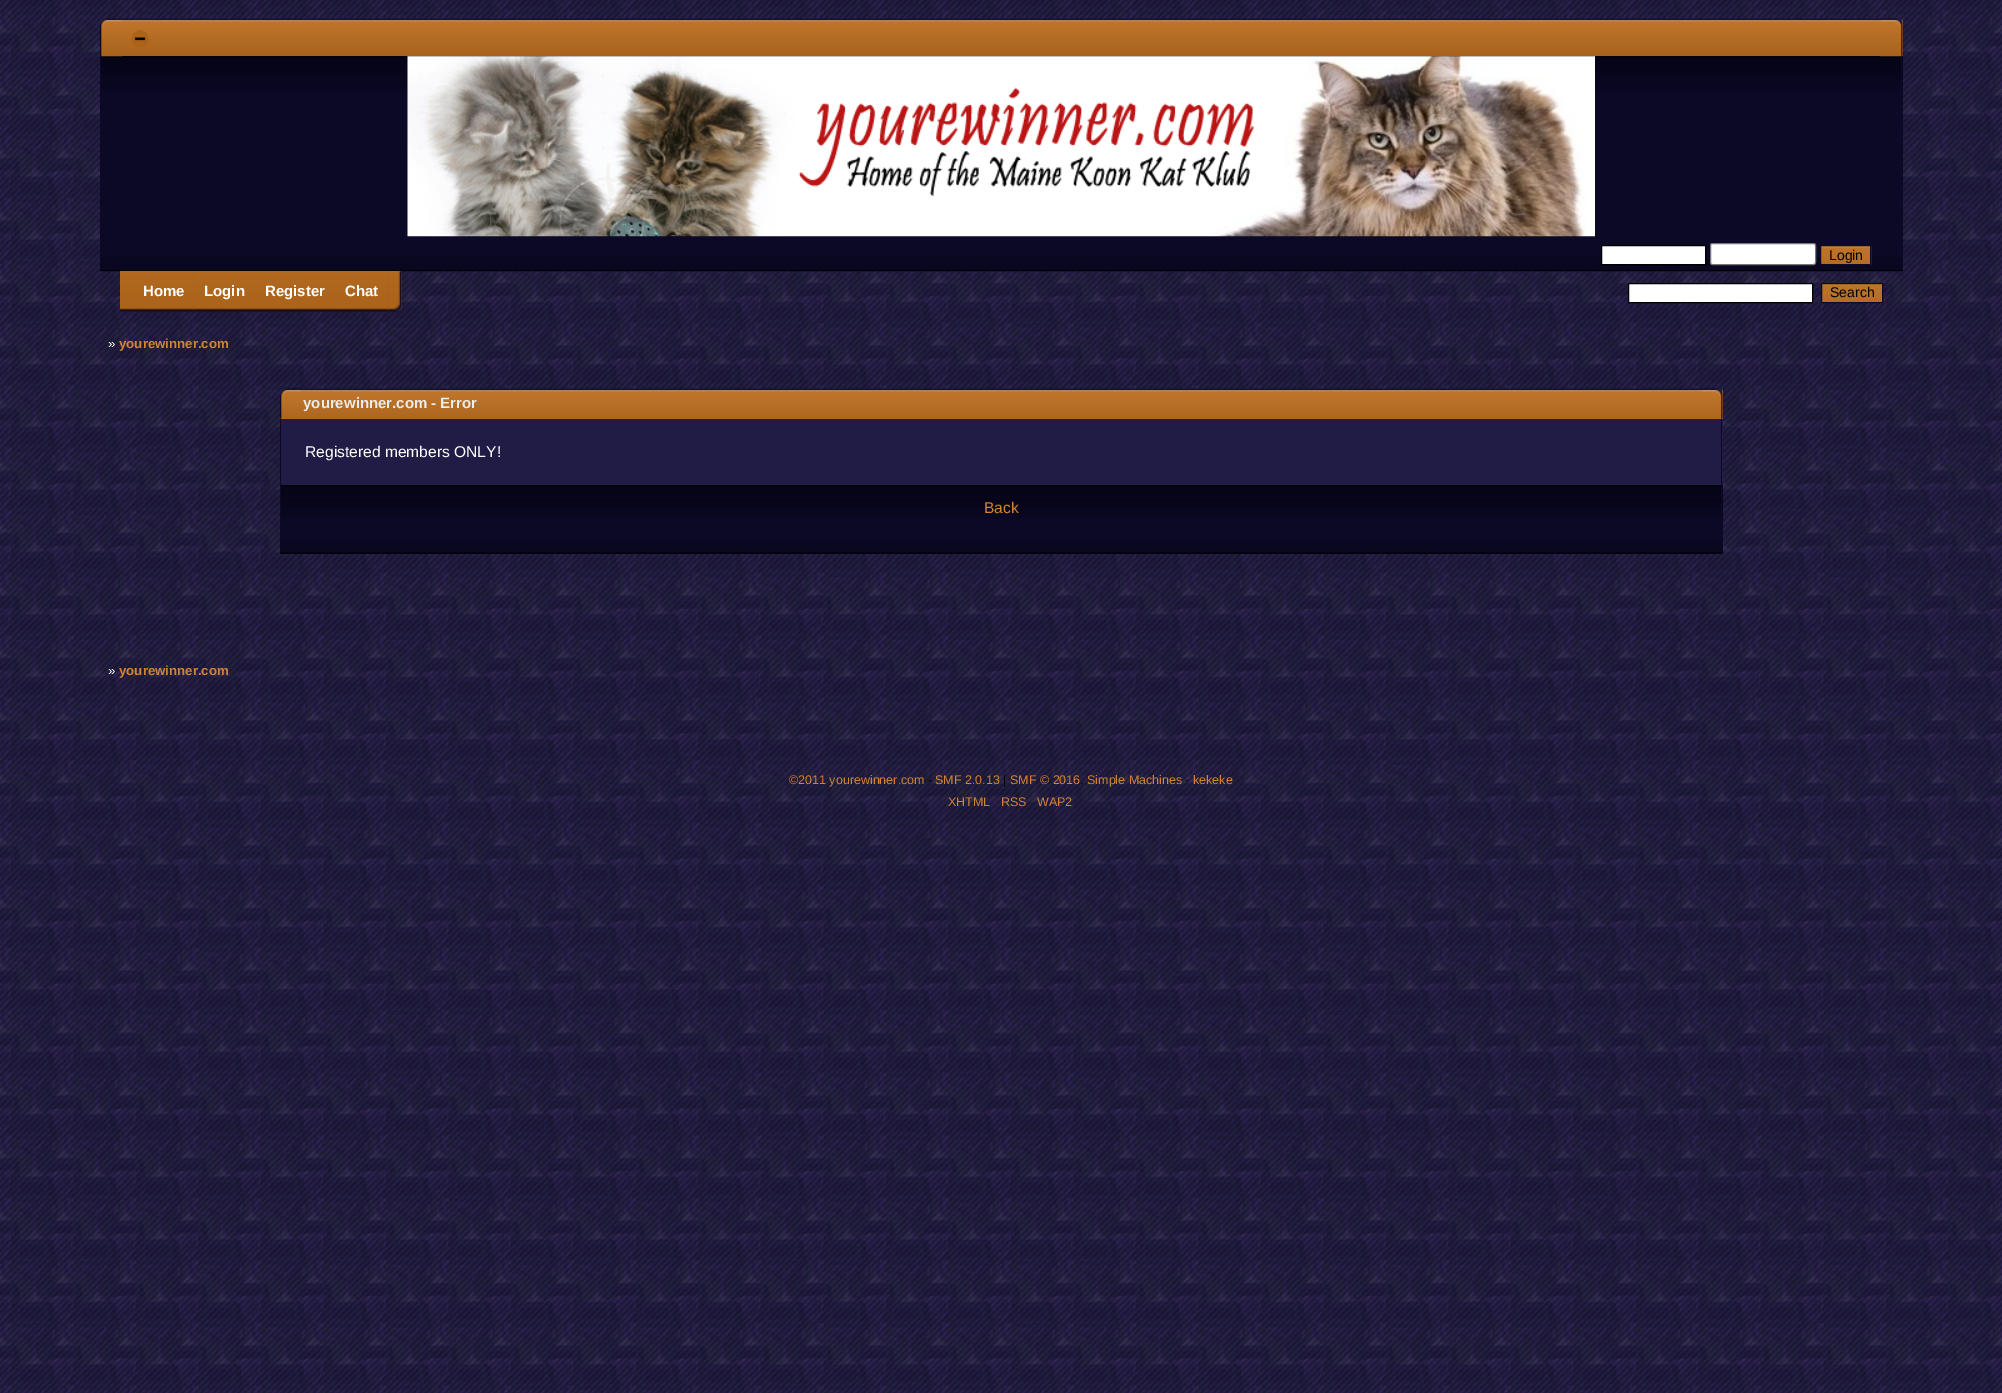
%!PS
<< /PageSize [2002 1393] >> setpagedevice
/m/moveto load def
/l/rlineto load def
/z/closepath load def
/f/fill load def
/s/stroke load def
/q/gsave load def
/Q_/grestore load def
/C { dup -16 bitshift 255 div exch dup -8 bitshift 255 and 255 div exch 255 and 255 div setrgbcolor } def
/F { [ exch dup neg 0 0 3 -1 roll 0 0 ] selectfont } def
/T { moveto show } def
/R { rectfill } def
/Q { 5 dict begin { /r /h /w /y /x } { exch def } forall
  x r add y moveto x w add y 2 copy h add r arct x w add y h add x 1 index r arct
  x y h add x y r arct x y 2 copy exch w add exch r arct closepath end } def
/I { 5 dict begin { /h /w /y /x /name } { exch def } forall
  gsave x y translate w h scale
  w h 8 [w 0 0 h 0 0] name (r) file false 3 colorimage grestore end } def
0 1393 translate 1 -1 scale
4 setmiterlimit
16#FFFFFF C
0 0 2002 1393 R
(1.rgb) 0 0 2002 1393 I
(2.rgb) 100 18 1803 38 I
16#0C0927 C
100 56 1803 215 R
(6.rgb) 101 56 1802 35 I
(3.rgb) 100 18 23 39 I
(4.rgb) 131 30 18 17 I
1901 56 1 35 R
(5.rgb) 1880 18 23 39 I
(7.rgb) 407 56 1188 181 I
(8.rgb) 100 257 1803 15 I
16#FFFFFF C
1601.5 245.5 m 104 0 l 0 19 l -104 0 l z q f Q_
16#000000 C
s
16#FFFFFF C
1710.5 243.5 105 21 2 Q q f Q_
16#767676 C
s
(9.rgb) 1821 246 51 19 I
16#0D0A29 C
1820.5 245.5 50 19 rectstroke
/LiberationSans-Regular 14 F
16#000000 C
(Login) 1829 260 T
(10.rgb) 120 271 282 41 I
16#A05D19 C
133 271 61 40 R
(11.rgb) 133 271 61 41 I
/LiberationSans-Bold 15 F
16#FFFFFF C
(Home) 143 296 T
(12.rgb) 193 271 62 41 I
(Login) 204 296 T
(13.rgb) 255 271 80 41 I
(Register) 265 296 T
16#A05D19 C
335 271 54 40 R
(14.rgb) 335 271 54 41 I
16#FFFFFF C
(Chat) 345 296 T
(15.rgb) 390 271 12 41 I
1628.5 283.5 m 184 0 l 0 19 l -184 0 l z q f Q_
16#000000 C
s
(16.rgb) 1822 284 60 18 I
16#0D0A29 C
1821.5 283.5 61 19 rectstroke
/LiberationSans-Regular 14 F
16#000000 C
(Search) 1830 297 T
/LiberationSans-Regular 13.25 F
16#FFFFFF C
(») 108 348 T
/LiberationSans-Bold 13.25 F
16#D28333 C
(yourewinner.com) 119 348 T
16#BE752A C
280 389 1443 30 R
(17.rgb) 280 388 1443 31 I
(18.rgb) 280 388 22 31 I
/LiberationSans-Bold 15 F
16#ECECEC C
(yourewinner.com - Error) 303 408 T
(19.rgb) 1700 388 23 31 I
16#211C45 C
281 419 1442 66 R
16#0D0924 C
1721 419 1 66 R
280 419 1 112 R
/LiberationSans-Regular 15.6 F
16#FFFFFF C
(Registered members ONLY!) 305 457 T
16#0C0927 C
281 485 1442 46 R
(20.rgb) 281 485 1442 34 I
16#0D0924 C
1721 485 1 46 R
16#D28333 C
(Back) 984 513 T
16#0C0927 C
280 531 1443 23 R
(21.rgb) 280 539 1443 15 I
/LiberationSans-Regular 13.25 F
16#FFFFFF C
(») 108 675 T
/LiberationSans-Bold 13.25 F
16#D28333 C
(yourewinner.com) 119 675 T
/LiberationSans-Regular 12.5 F
(©2011 yourewinner.com) 789 784 T
16#000000 C
(-) 928 784 T
16#D28333 C
(SMF 2.0.13) 935 784 T
16#000000 C
(|) 1003 784 T
16#D28333 C
(SMF © 2016) 1010 784 T
(Simple Machines) 1087 784 T
16#000000 C
(-) 1185 784 T
16#D28333 C
(kekeke) 1193 784 T
16#000000 C
(,) 1080 784 T
16#D28333 C
(XHTML) 948 806 T
(RSS) 1001 806 T
(WAP2) 1037 806 T
showpage
